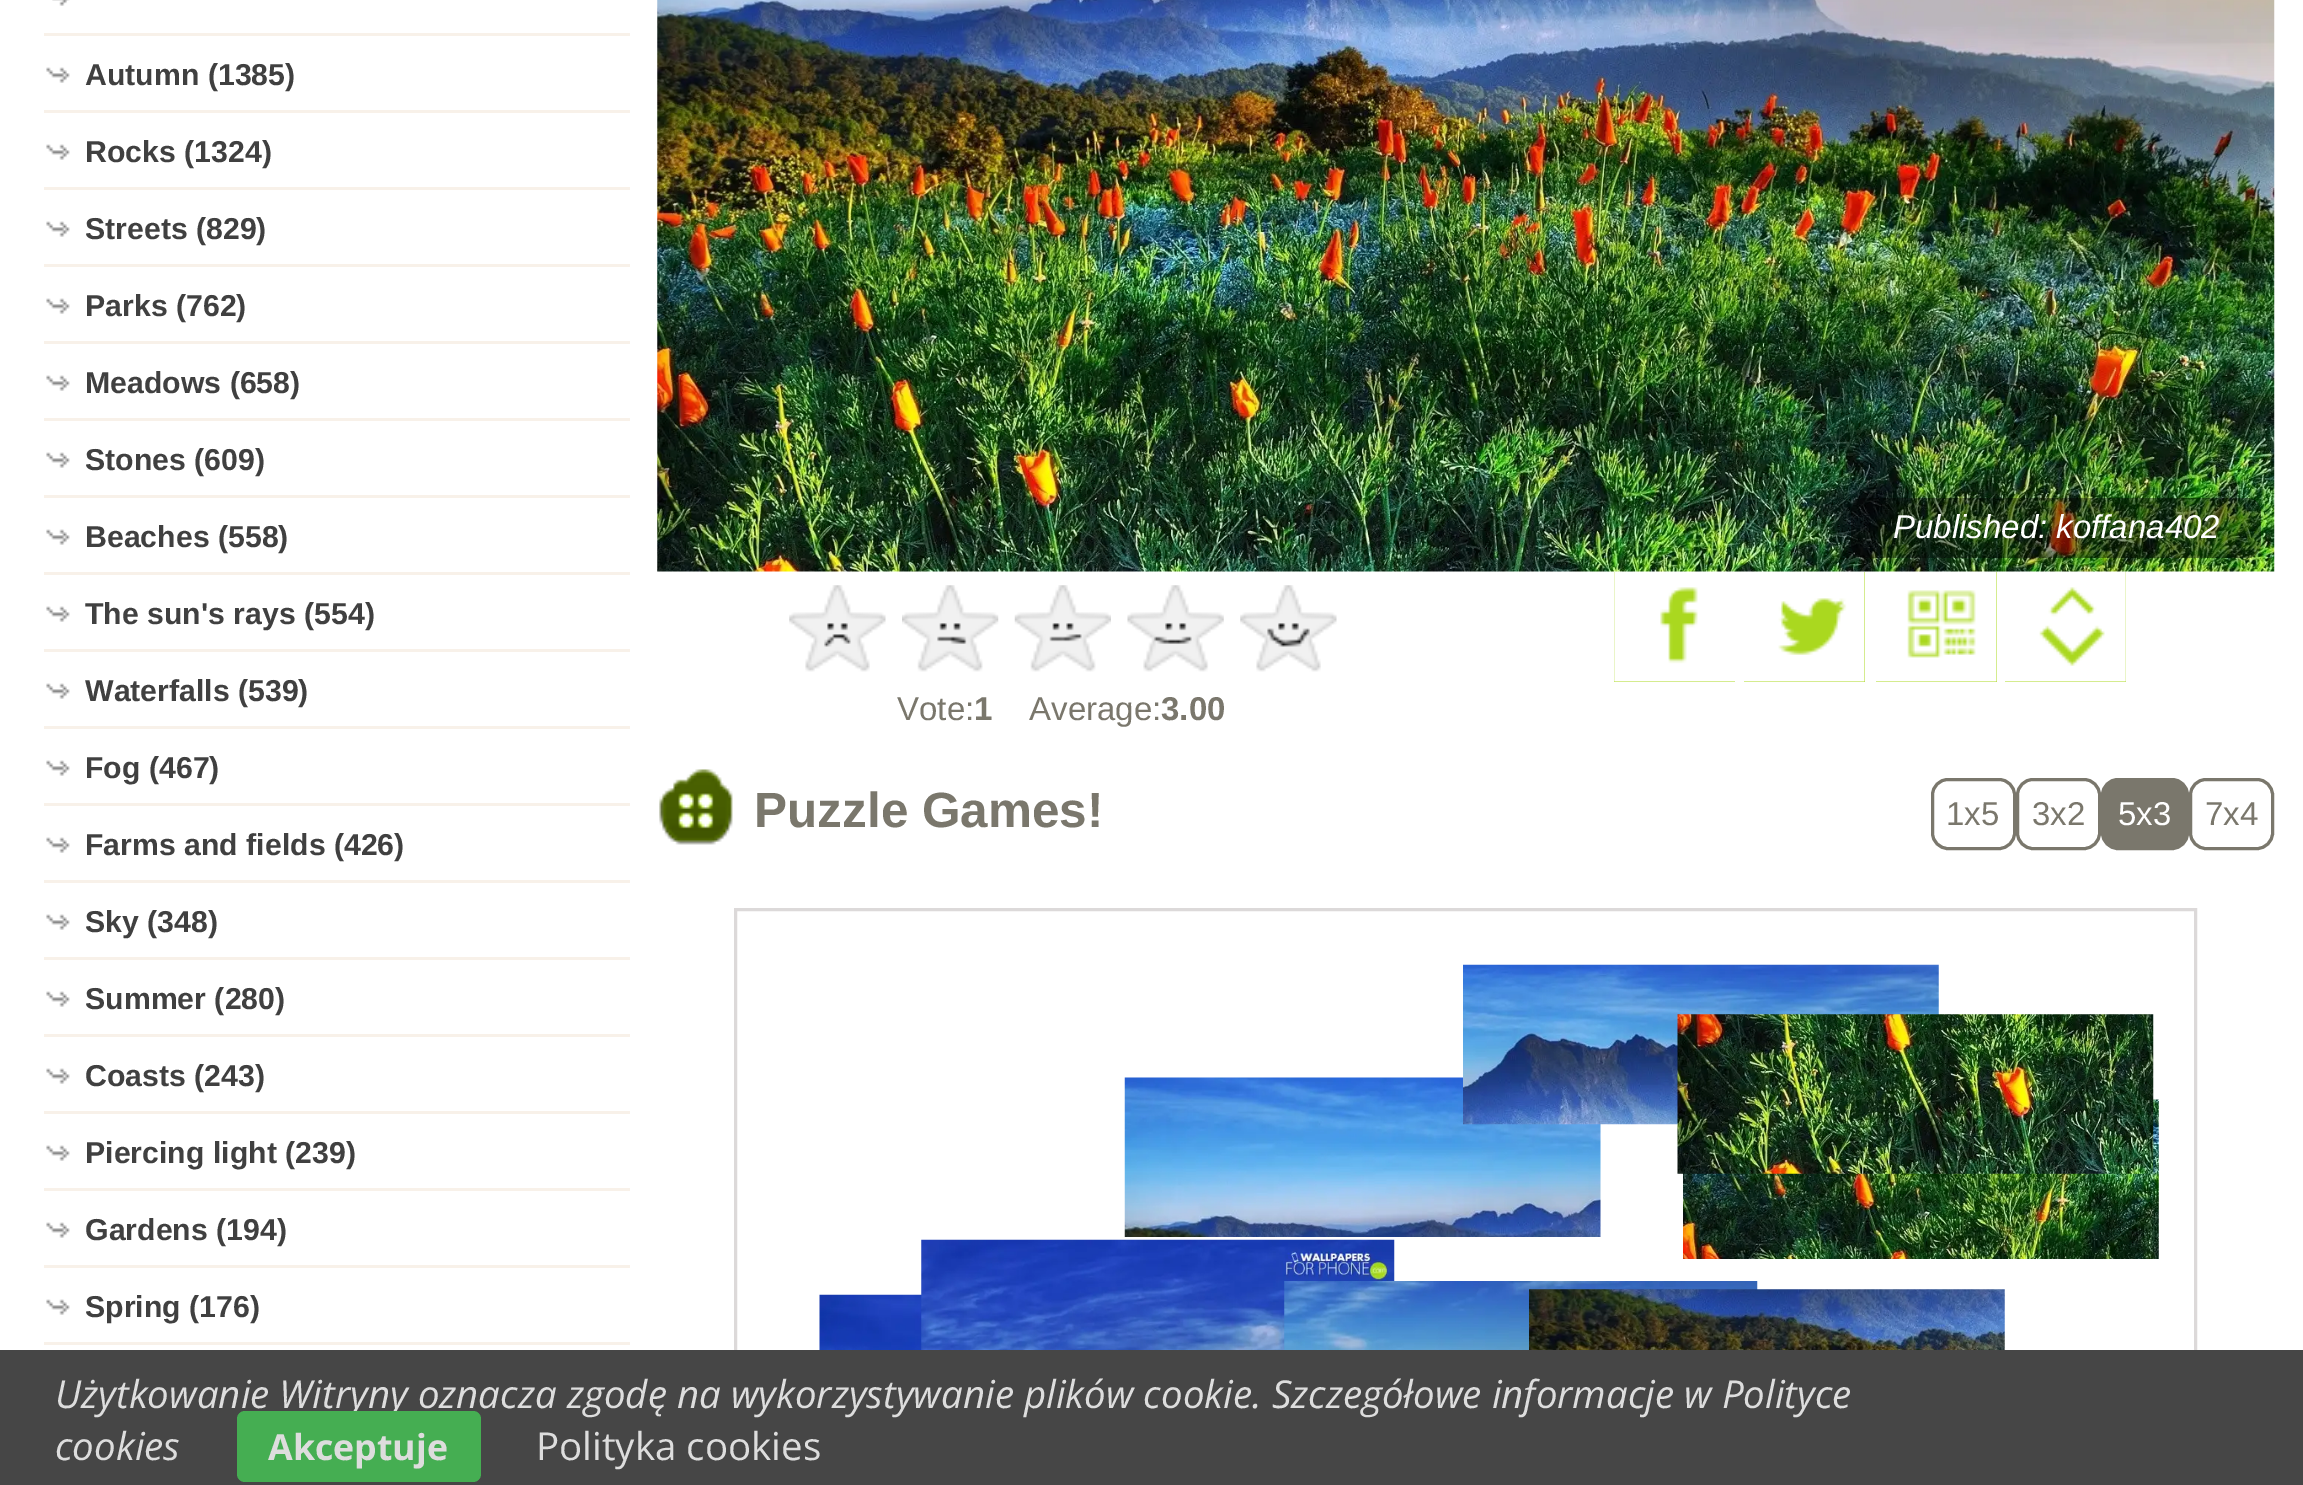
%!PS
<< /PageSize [2303 1485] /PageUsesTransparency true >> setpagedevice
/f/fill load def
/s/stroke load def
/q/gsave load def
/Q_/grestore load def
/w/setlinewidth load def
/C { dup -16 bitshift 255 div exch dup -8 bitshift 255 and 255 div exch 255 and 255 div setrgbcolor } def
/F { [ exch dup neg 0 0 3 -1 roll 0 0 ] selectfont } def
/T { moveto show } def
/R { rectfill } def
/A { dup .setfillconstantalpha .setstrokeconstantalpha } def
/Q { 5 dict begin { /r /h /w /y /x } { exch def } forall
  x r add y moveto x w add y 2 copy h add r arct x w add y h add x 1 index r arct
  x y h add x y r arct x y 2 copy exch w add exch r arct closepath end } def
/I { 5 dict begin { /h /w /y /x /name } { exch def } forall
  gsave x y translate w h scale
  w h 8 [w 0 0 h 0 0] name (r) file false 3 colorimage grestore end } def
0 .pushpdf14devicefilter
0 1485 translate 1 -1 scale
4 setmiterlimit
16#FFFFFF C
0 0 2303 1485 R
(1.rgb) 52 0 18 6 I
16#F8F1E9 C
44 33 586 3 R
(2.rgb) 46 67 24 16 I
44 110 586 3 R
/LiberationSans-Bold 30.25 F
16#404040 C
(Autumn \(1385\)) 85 85 T
(2.rgb) 46 144 24 16 I
16#F8F1E9 C
44 187 586 3 R
16#404040 C
(Rocks \(1324\)) 85 162 T
(2.rgb) 46 221 24 16 I
16#F8F1E9 C
44 264 586 3 R
16#404040 C
(Streets \(829\)) 85 239 T
(2.rgb) 46 298 24 16 I
16#F8F1E9 C
44 341 586 3 R
16#404040 C
(Parks \(762\)) 85 316 T
(2.rgb) 46 375 24 16 I
16#F8F1E9 C
44 418 586 3 R
16#404040 C
(Meadows \(658\)) 85 393 T
(2.rgb) 46 452 24 16 I
16#F8F1E9 C
44 495 586 3 R
16#404040 C
(Stones \(609\)) 85 470 T
(2.rgb) 46 529 24 16 I
16#F8F1E9 C
44 572 586 3 R
16#404040 C
(Beaches \(558\)) 85 547 T
(2.rgb) 46 606 24 16 I
16#F8F1E9 C
44 649 586 3 R
16#404040 C
(The sun's rays \(554\)) 85 624 T
(2.rgb) 46 683 24 16 I
16#F8F1E9 C
44 726 586 3 R
16#404040 C
(Waterfalls \(539\)) 85 701 T
(3.rgb) 46 760 24 16 I
16#F8F1E9 C
44 803 586 3 R
16#404040 C
(Fog \(467\)) 85 778 T
(2.rgb) 46 837 24 16 I
16#F8F1E9 C
44 880 586 3 R
16#404040 C
(Farms and fields \(426\)) 85 855 T
(2.rgb) 46 914 24 16 I
16#F8F1E9 C
44 957 586 3 R
16#404040 C
(Sky \(348\)) 85 932 T
(2.rgb) 46 991 24 16 I
16#F8F1E9 C
44 1034 586 3 R
16#404040 C
(Summer \(280\)) 85 1009 T
(2.rgb) 46 1068 24 16 I
16#F8F1E9 C
44 1111 586 3 R
16#404040 C
(Coasts \(243\)) 85 1086 T
(2.rgb) 46 1145 24 16 I
16#F8F1E9 C
44 1188 586 3 R
16#404040 C
(Piercing light \(239\)) 85 1163 T
(2.rgb) 46 1222 24 16 I
16#F8F1E9 C
44 1265 586 3 R
16#404040 C
(Gardens \(194\)) 85 1240 T
(2.rgb) 46 1299 24 16 I
16#F8F1E9 C
44 1342 586 3 R
16#404040 C
(Spring \(176\)) 85 1317 T
(4.rgb) 657 0 1618 572 I
0.4 A
16#000000 C
1851 498 410 60 14 Q f
/LiberationSans-Italic 33 F
1 A
16#FFFFFF C
(Published: koffana402) 1893 538 T
16#AAD81F C
1614 572 121 110 R
(5.rgb) 1614 572 121 110 I
1744 572 121 110 R
(6.rgb) 1744 572 121 110 I
1876 572 121 110 R
(7.rgb) 1876 572 121 110 I
2005 572 121 110 R
(8.rgb) 2005 572 121 110 I
(9.rgb) 789 585 97 87 I
(10.rgb) 902 585 97 87 I
(11.rgb) 1014 585 97 87 I
(12.rgb) 1127 585 97 87 I
(13.rgb) 1240 585 97 87 I
/LiberationSans-Regular 33 F
16#7A776C C
(Vote:) 897 720 T
/LiberationSans-Bold 33 F
(1) 974 720 T
/LiberationSans-Regular 33 F
(Average:) 1029 720 T
/LiberationSans-Bold 33 F
(3.00) 1161 720 T
(14.rgb) 659 769 74 76 I
/LiberationSans-Bold 49.5 F
(Puzzle Games!) 754 827 T
3 w
1932.5 779.5 82 69 15.5 Q s
/LiberationSans-Regular 33 F
(1x5) 1946 825 T
2017.5 779.5 82 69 15.5 Q s
(3x2) 2032 825 T
2102.5 779.5 85 69 15.5 Q q f Q_
s
16#FFFFFF C
(5x3) 2118 825 T
16#7A776C C
2190.5 779.5 82 69 15.5 Q s
(7x4) 2205 825 T
16#DCD9D9 C
735.5 909.5 1460 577 rectstroke
(16.rgb) 1124 1077 477 160 I
(15.rgb) 1463 964 476 161 I
(18.rgb) 1683 1099 476 160 I
(17.rgb) 1677 1014 477 160 I
(19.rgb) 819 1294 103 56 I
(20.rgb) 921 1239 474 111 I
(21.rgb) 1284 1281 474 69 I
(22.rgb) 1529 1289 476 61 I
16#464646 C
0 1350 2303 135 R
/OpenSans-Italic 38.5 F
16#DDDDDD C
(Użytkowanie Witryny oznacza zgodę na wykorzystywanie plików cookie. Szczegółowe informacje w Polityce) 55 1408 T
(cookies) 55 1460 T
16#45AE52 C
237 1411 244 71 8 Q f
/OpenSans-Bold 35.75 F
16#DDDDDD C
(Akceptuje) 268 1460 T
/OpenSans-Regular 38.5 F
(Polityka cookies) 536 1460 T
.poppdf14devicefilter showpage
